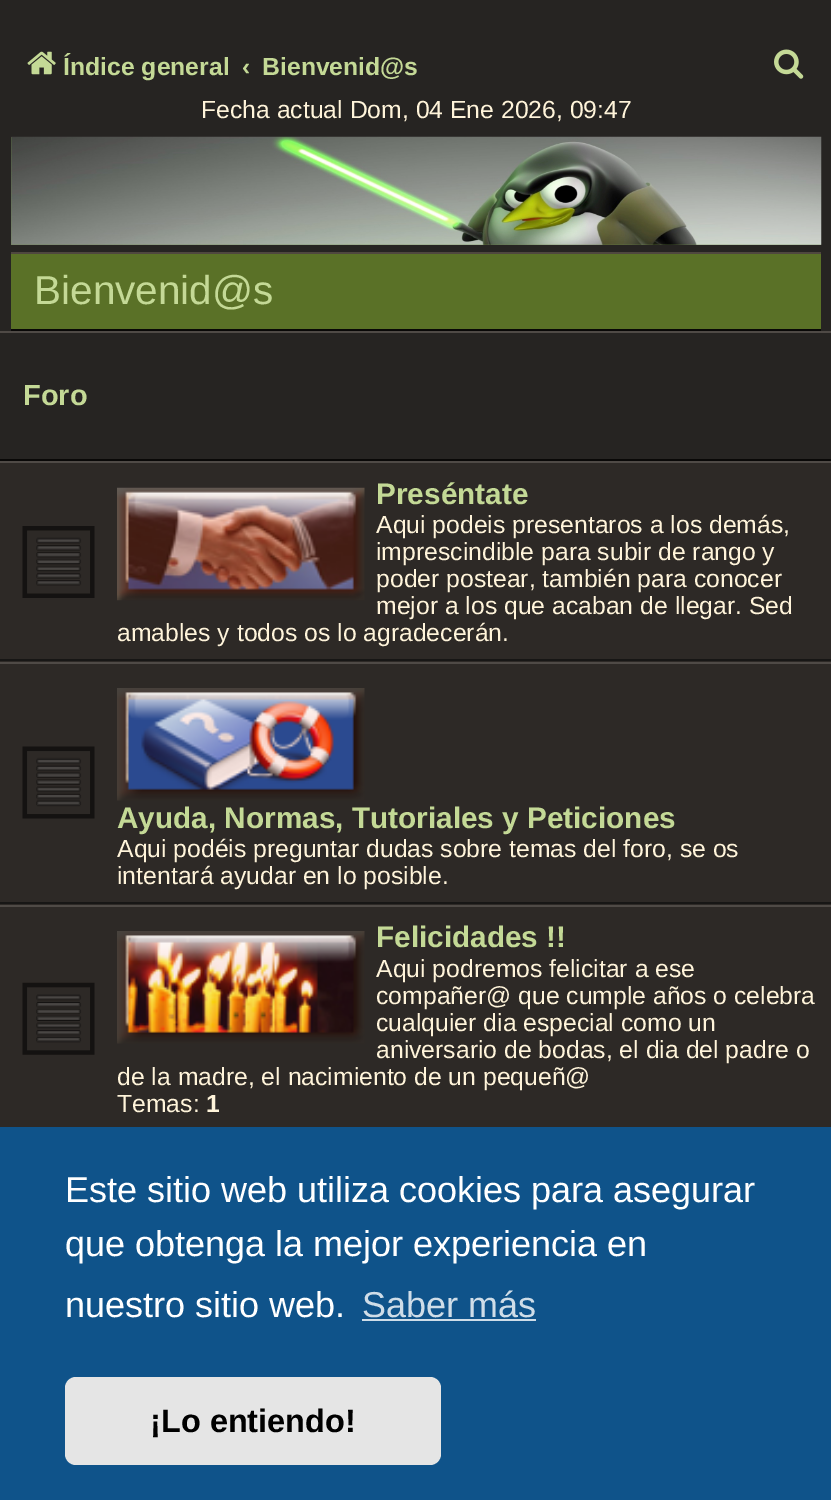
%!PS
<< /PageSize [831 1500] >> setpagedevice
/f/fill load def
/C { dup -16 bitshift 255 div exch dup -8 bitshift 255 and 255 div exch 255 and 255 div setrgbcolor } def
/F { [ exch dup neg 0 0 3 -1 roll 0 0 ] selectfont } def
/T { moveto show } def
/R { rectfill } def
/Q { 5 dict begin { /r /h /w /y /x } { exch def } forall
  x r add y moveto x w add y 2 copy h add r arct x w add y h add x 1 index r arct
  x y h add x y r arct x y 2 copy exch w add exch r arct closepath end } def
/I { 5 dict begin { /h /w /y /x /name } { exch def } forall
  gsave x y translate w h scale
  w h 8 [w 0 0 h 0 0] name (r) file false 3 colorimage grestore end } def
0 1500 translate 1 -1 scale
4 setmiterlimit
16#262422 C
0 0 831 1500 R
(1.rgb) 27 51 29 24 I
/LiberationSans-Bold 24.75 F
16#C4D996 C
(Índice general) 63 75 T
(‹) 242 75 T
(Bienvenid@s) 262 75 T
(2.rgb) 774 49 30 30 I
/LiberationSans-Regular 24.75 F
16#FFF4DA C
(Fecha actual Dom, 04 Ene 2026, 09:47) 201 118 T
16#688840 C
11 137 810 108 R
(3.rgb) 11 136 811 109 I
16#5A7127 C
11 254 810 75 R
16#4F473F C
11 252 810 2 R
16#090807 C
11 329 810 2 R
/LiberationSans-Regular 40.5 F
16#C4D996 C
(Bienvenid@s) 34 304 T
16#4F4A46 C
0 331 831 2 R
16#090807 C
0 459 831 2 R
/LiberationSans-Bold 29 F
16#C4D996 C
(Foro) 23 405 T
16#2D2926 C
0 463 831 664 R
16#4F4A46 C
0 461 831 2 R
16#171615 C
0 659 831 2 R
(4.rgb) 22 526 73 72 I
(5.rgb) 117 487 248 114 I
/LiberationSans-Bold 29.75 F
16#C4D996 C
(Preséntate) 376 504 T
/LiberationSans-Regular 24.75 F
16#FFF4DA C
(Aqui podeis presentaros a los demás,) 376 533 T
(imprescindible para subir de rango y) 376 560 T
(poder postear, también para conocer) 376 587 T
(mejor a los que acaban de llegar. Sed) 376 614 T
(amables y todos os lo agradecerán.) 117 641 T
16#4F4A46 C
0 662 831 2 R
16#171615 C
0 902 831 2 R
(6.rgb) 22 746 73 73 I
(7.rgb) 117 688 248 113 I
/LiberationSans-Bold 29.75 F
16#C4D996 C
(Ayuda, Normas, Tutoriales y Peticiones) 117 828 T
/LiberationSans-Regular 24.75 F
16#FFF4DA C
(Aqui podéis preguntar dudas sobre temas del foro, se os) 117 857 T
(intentará ayudar en lo posible.) 117 884 T
16#4F4A46 C
0 905 831 2 R
(8.rgb) 22 982 73 73 I
(9.rgb) 117 931 248 113 I
/LiberationSans-Bold 29.75 F
16#C4D996 C
(Felicidades !!) 376 947 T
/LiberationSans-Regular 24.75 F
16#FFF4DA C
(Aqui podremos felicitar a ese) 376 977 T
(compañer@ que cumple años o celebra) 376 1004 T
(cualquier dia especial como un) 376 1031 T
(aniversario de bodas, el dia del padre o) 376 1058 T
(de la madre, el nacimiento de un pequeñ@) 117 1085 T
(Temas:) 117 1112 T
/LiberationSans-Bold 24.75 F
(1) 206 1112 T
16#0F538A C
0 1127 831 373 R
/LiberationSans-Regular 36 F
16#FFFFFF C
(Este sitio web utiliza cookies para asegurar) 65 1202 T
(que obtenga la mejor experiencia en) 65 1256 T
(nuestro sitio web.) 65 1317 T
16#CFDDE8 C
(Saber más) 362 1317 T
362 1319 174 2 R
16#E5E5E5 C
65 1377 376 88 11 Q f
/LiberationSans-Bold 32.5 F
16#000000 C
(¡Lo entiendo!) 150 1432 T
showpage
